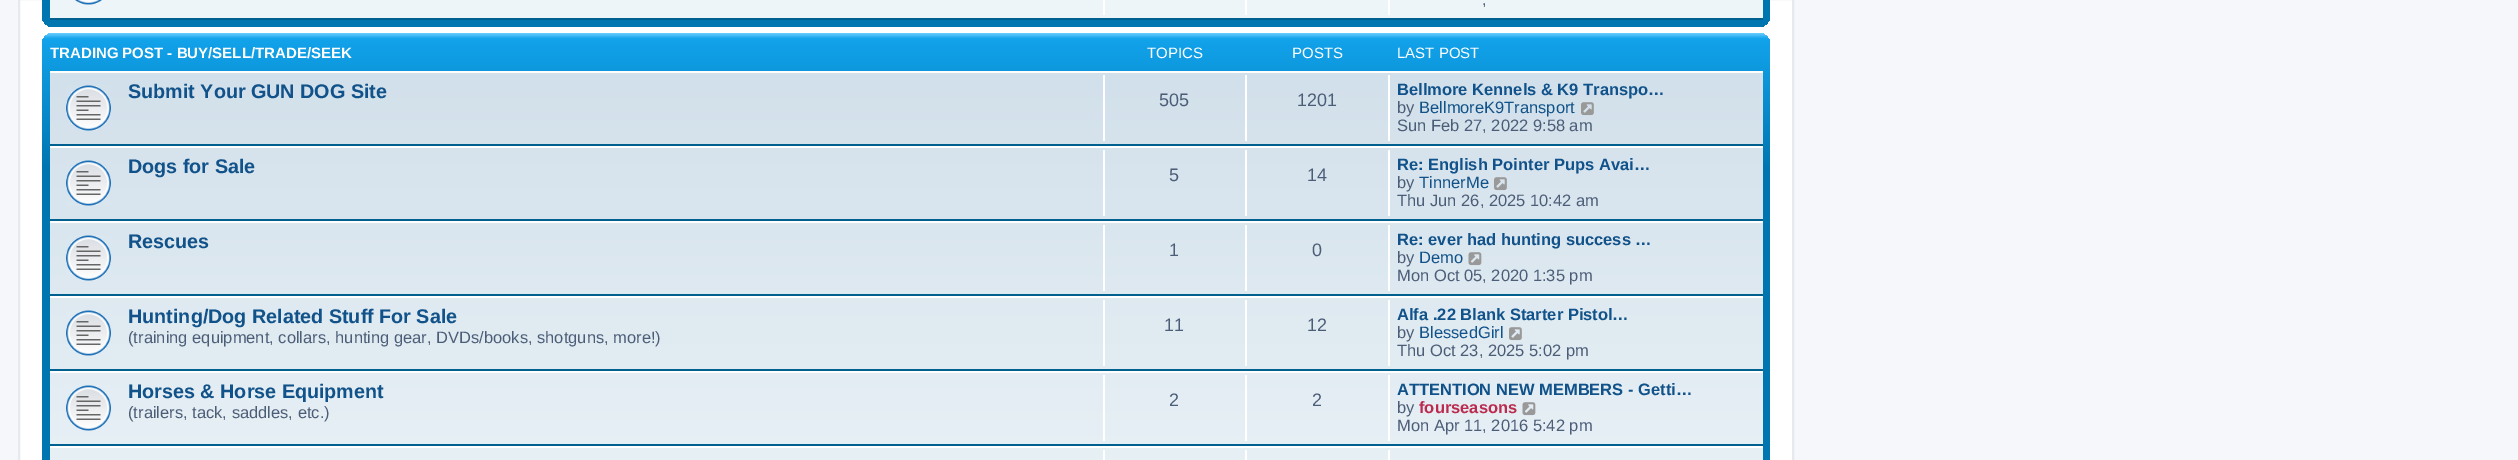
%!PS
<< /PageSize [2518 460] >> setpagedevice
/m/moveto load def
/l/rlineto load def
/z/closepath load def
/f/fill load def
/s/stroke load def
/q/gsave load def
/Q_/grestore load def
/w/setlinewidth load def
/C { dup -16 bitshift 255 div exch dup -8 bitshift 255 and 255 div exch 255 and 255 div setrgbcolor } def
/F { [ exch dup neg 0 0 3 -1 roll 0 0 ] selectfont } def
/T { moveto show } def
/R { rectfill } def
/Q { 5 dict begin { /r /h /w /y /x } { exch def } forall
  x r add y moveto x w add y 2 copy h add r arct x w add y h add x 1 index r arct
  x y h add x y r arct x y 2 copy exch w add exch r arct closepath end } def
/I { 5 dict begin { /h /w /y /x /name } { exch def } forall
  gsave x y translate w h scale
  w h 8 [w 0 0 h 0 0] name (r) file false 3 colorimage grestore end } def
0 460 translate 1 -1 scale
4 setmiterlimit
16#F5F7FA C
0 0 2518 460 R
16#FFFFFF C
19 -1 m 1774 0 l 0 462 l -1774 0 l z q f Q_
16#E6E9ED C
2 w
s
q 42 -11 1728 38 11 Q clip newpath
<< /ShadingType 2 /ColorSpace /DeviceRGB /Coords [906 -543 906 27] /Extend [true true] /Function << /FunctionType 3 /Domain [0 1] /Functions [<< /FunctionType 2 /Domain [0 1] /C0 [.416 .808 1] /C1 [.071 .639 .922] /N 1 >> << /FunctionType 2 /Domain [0 1] /C0 [.071 .639 .922] /C1 [0 .463 .694] /N 1 >> << /FunctionType 2 /Domain [0 1] /C0 [0 .463 .694] /C1 [0 .463 .694] /N 1 >>] /Bounds [.01 .24] /Encode [0 1 0 1 0 1] >> >> shfill Q_
16#EEF5F9 C
50 0 1713 18 R
16#00608F C
50 18 1713 2 R
(1.rgb) 75 0 27 5 I
16#FFFFFF C
1103 0 2 15 R
1245 0 2 15 R
1388 0 2 15 R
/LiberationSans-Regular 16.5 F
16#4C5D77 C
(,) 1482 5 T
q 42 33 1728 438 11 Q clip newpath
<< /ShadingType 2 /ColorSpace /DeviceRGB /Coords [906 33 906 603] /Extend [true true] /Function << /FunctionType 3 /Domain [0 1] /Functions [<< /FunctionType 2 /Domain [0 1] /C0 [.416 .808 1] /C1 [.071 .639 .922] /N 1 >> << /FunctionType 2 /Domain [0 1] /C0 [.071 .639 .922] /C1 [0 .463 .694] /N 1 >> << /FunctionType 2 /Domain [0 1] /C0 [0 .463 .694] /C1 [0 .463 .694] /N 1 >>] /Bounds [.01 .24] /Encode [0 1 0 1 0 1] >> >> shfill Q_
q
50 41 1713 30 rectclip
/LiberationSans-Bold 15 F
16#FFFFFF C
(TRADING POST - BUY/SELL/TRADE/SEEK) 50 58 T
Q_
/LiberationSans-Regular 15 F
16#FFFFFF C
(TOPICS) 1147 58 T
(POSTS) 1292 58 T
(LAST POST) 1397 58 T
q 50 73 m 1713 0 l 0 387 l -1713 0 l z clip newpath
<< /ShadingType 2 /ColorSpace /DeviceRGB /Coords [906 70 906 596] /Extend [true true] /Function << /FunctionType 2 /Domain [0 1] /C0 [.824 .878 .922] /C1 [.933 .961 .976] /N 1 >> >> shfill Q_
50 71 1713 2 R
16#00608F C
50 144 1713 2 R
(2.rgb) 66 85 45 46 I
/LiberationSans-Bold 19.75 F
16#105289 C
(Submit Your GUN DOG Site) 128 98 T
16#FFFFFF C
1103 75 2 66 R
/LiberationSans-Regular 18 F
16#4C5D77 C
(505) 1159 106 T
16#FFFFFF C
1245 75 2 66 R
16#4C5D77 C
(1201) 1297 106 T
16#FFFFFF C
1388 75 2 66 R
/LiberationSans-Bold 16.5 F
16#105289 C
(Bellmore Kennels & K9 Transpo…) 1397 95 T
/LiberationSans-Regular 16.5 F
16#4C5D77 C
(by) 1397 113 T
16#105289 C
(BellmoreK9Transport) 1419 113 T
(3.rgb) 1581 102 13 14 I
16#4C5D77 C
(Sun Feb 27, 2022 9:58 am) 1397 131 T
16#FFFFFF C
50 146 1713 2 R
16#00608F C
50 219 1713 2 R
(4.rgb) 66 160 45 46 I
/LiberationSans-Bold 19.75 F
16#105289 C
(Dogs for Sale) 128 173 T
16#FFFFFF C
1103 150 2 66 R
/LiberationSans-Regular 18 F
16#4C5D77 C
(5) 1169 181 T
16#FFFFFF C
1245 150 2 66 R
16#4C5D77 C
(14) 1307 181 T
16#FFFFFF C
1388 150 2 66 R
/LiberationSans-Bold 16.5 F
16#105289 C
(Re: English Pointer Pups Avai…) 1397 170 T
/LiberationSans-Regular 16.5 F
16#4C5D77 C
(by) 1397 188 T
16#105289 C
(TinnerMe) 1419 188 T
(5.rgb) 1494 177 13 14 I
16#4C5D77 C
(Thu Jun 26, 2025 10:42 am) 1397 206 T
16#FFFFFF C
50 221 1713 2 R
16#00608F C
50 294 1713 2 R
(6.rgb) 66 235 45 46 I
/LiberationSans-Bold 19.75 F
16#105289 C
(Rescues) 128 248 T
16#FFFFFF C
1103 225 2 66 R
/LiberationSans-Regular 18 F
16#4C5D77 C
(1) 1169 256 T
16#FFFFFF C
1245 225 2 66 R
16#4C5D77 C
(0) 1312 256 T
16#FFFFFF C
1388 225 2 66 R
/LiberationSans-Bold 16.5 F
16#105289 C
(Re: ever had hunting success …) 1397 245 T
/LiberationSans-Regular 16.5 F
16#4C5D77 C
(by) 1397 263 T
16#105289 C
(Demo) 1419 263 T
(7.rgb) 1468 252 14 14 I
16#4C5D77 C
(Mon Oct 05, 2020 1:35 pm) 1397 281 T
16#FFFFFF C
50 296 1713 2 R
16#00608F C
50 369 1713 2 R
(8.rgb) 66 310 45 46 I
/LiberationSans-Bold 19.75 F
16#105289 C
(Hunting/Dog Related Stuff For Sale) 128 323 T
/LiberationSans-Regular 16.5 F
16#4C5D77 C
(\(training equipment, collars, hunting gear, DVDs/books, shotguns, more!\)) 128 343 T
16#FFFFFF C
1103 300 2 66 R
/LiberationSans-Regular 18 F
16#4C5D77 C
(11) 1164 331 T
16#FFFFFF C
1245 300 2 66 R
16#4C5D77 C
(12) 1307 331 T
16#FFFFFF C
1388 300 2 66 R
/LiberationSans-Bold 16.5 F
16#105289 C
(Alfa .22 Blank Starter Pistol…) 1397 320 T
/LiberationSans-Regular 16.5 F
16#4C5D77 C
(by) 1397 338 T
16#105289 C
(BlessedGirl) 1419 338 T
(9.rgb) 1509 327 13 14 I
16#4C5D77 C
(Thu Oct 23, 2025 5:02 pm) 1397 356 T
16#FFFFFF C
50 371 1713 2 R
16#00608F C
50 444 1713 2 R
(10.rgb) 66 385 45 46 I
/LiberationSans-Bold 19.75 F
16#105289 C
(Horses & Horse Equipment) 128 398 T
/LiberationSans-Regular 16.5 F
16#4C5D77 C
(\(trailers, tack, saddles, etc.\)) 128 418 T
16#FFFFFF C
1103 375 2 66 R
/LiberationSans-Regular 18 F
16#4C5D77 C
(2) 1169 406 T
16#FFFFFF C
1245 375 2 66 R
16#4C5D77 C
(2) 1312 406 T
16#FFFFFF C
1388 375 2 66 R
/LiberationSans-Bold 16.5 F
16#105289 C
(ATTENTION NEW MEMBERS - Getti…) 1397 395 T
/LiberationSans-Regular 16.5 F
16#4C5D77 C
(by) 1397 413 T
/LiberationSans-Bold 16.5 F
16#BC2A4D C
(fourseasons) 1419 413 T
(11.rgb) 1522 402 14 14 I
/LiberationSans-Regular 16.5 F
16#4C5D77 C
(Mon Apr 11, 2016 5:42 pm) 1397 431 T
16#FFFFFF C
50 446 1713 2 R
1103 450 2 10 R
1245 450 2 10 R
1388 450 2 10 R
showpage
